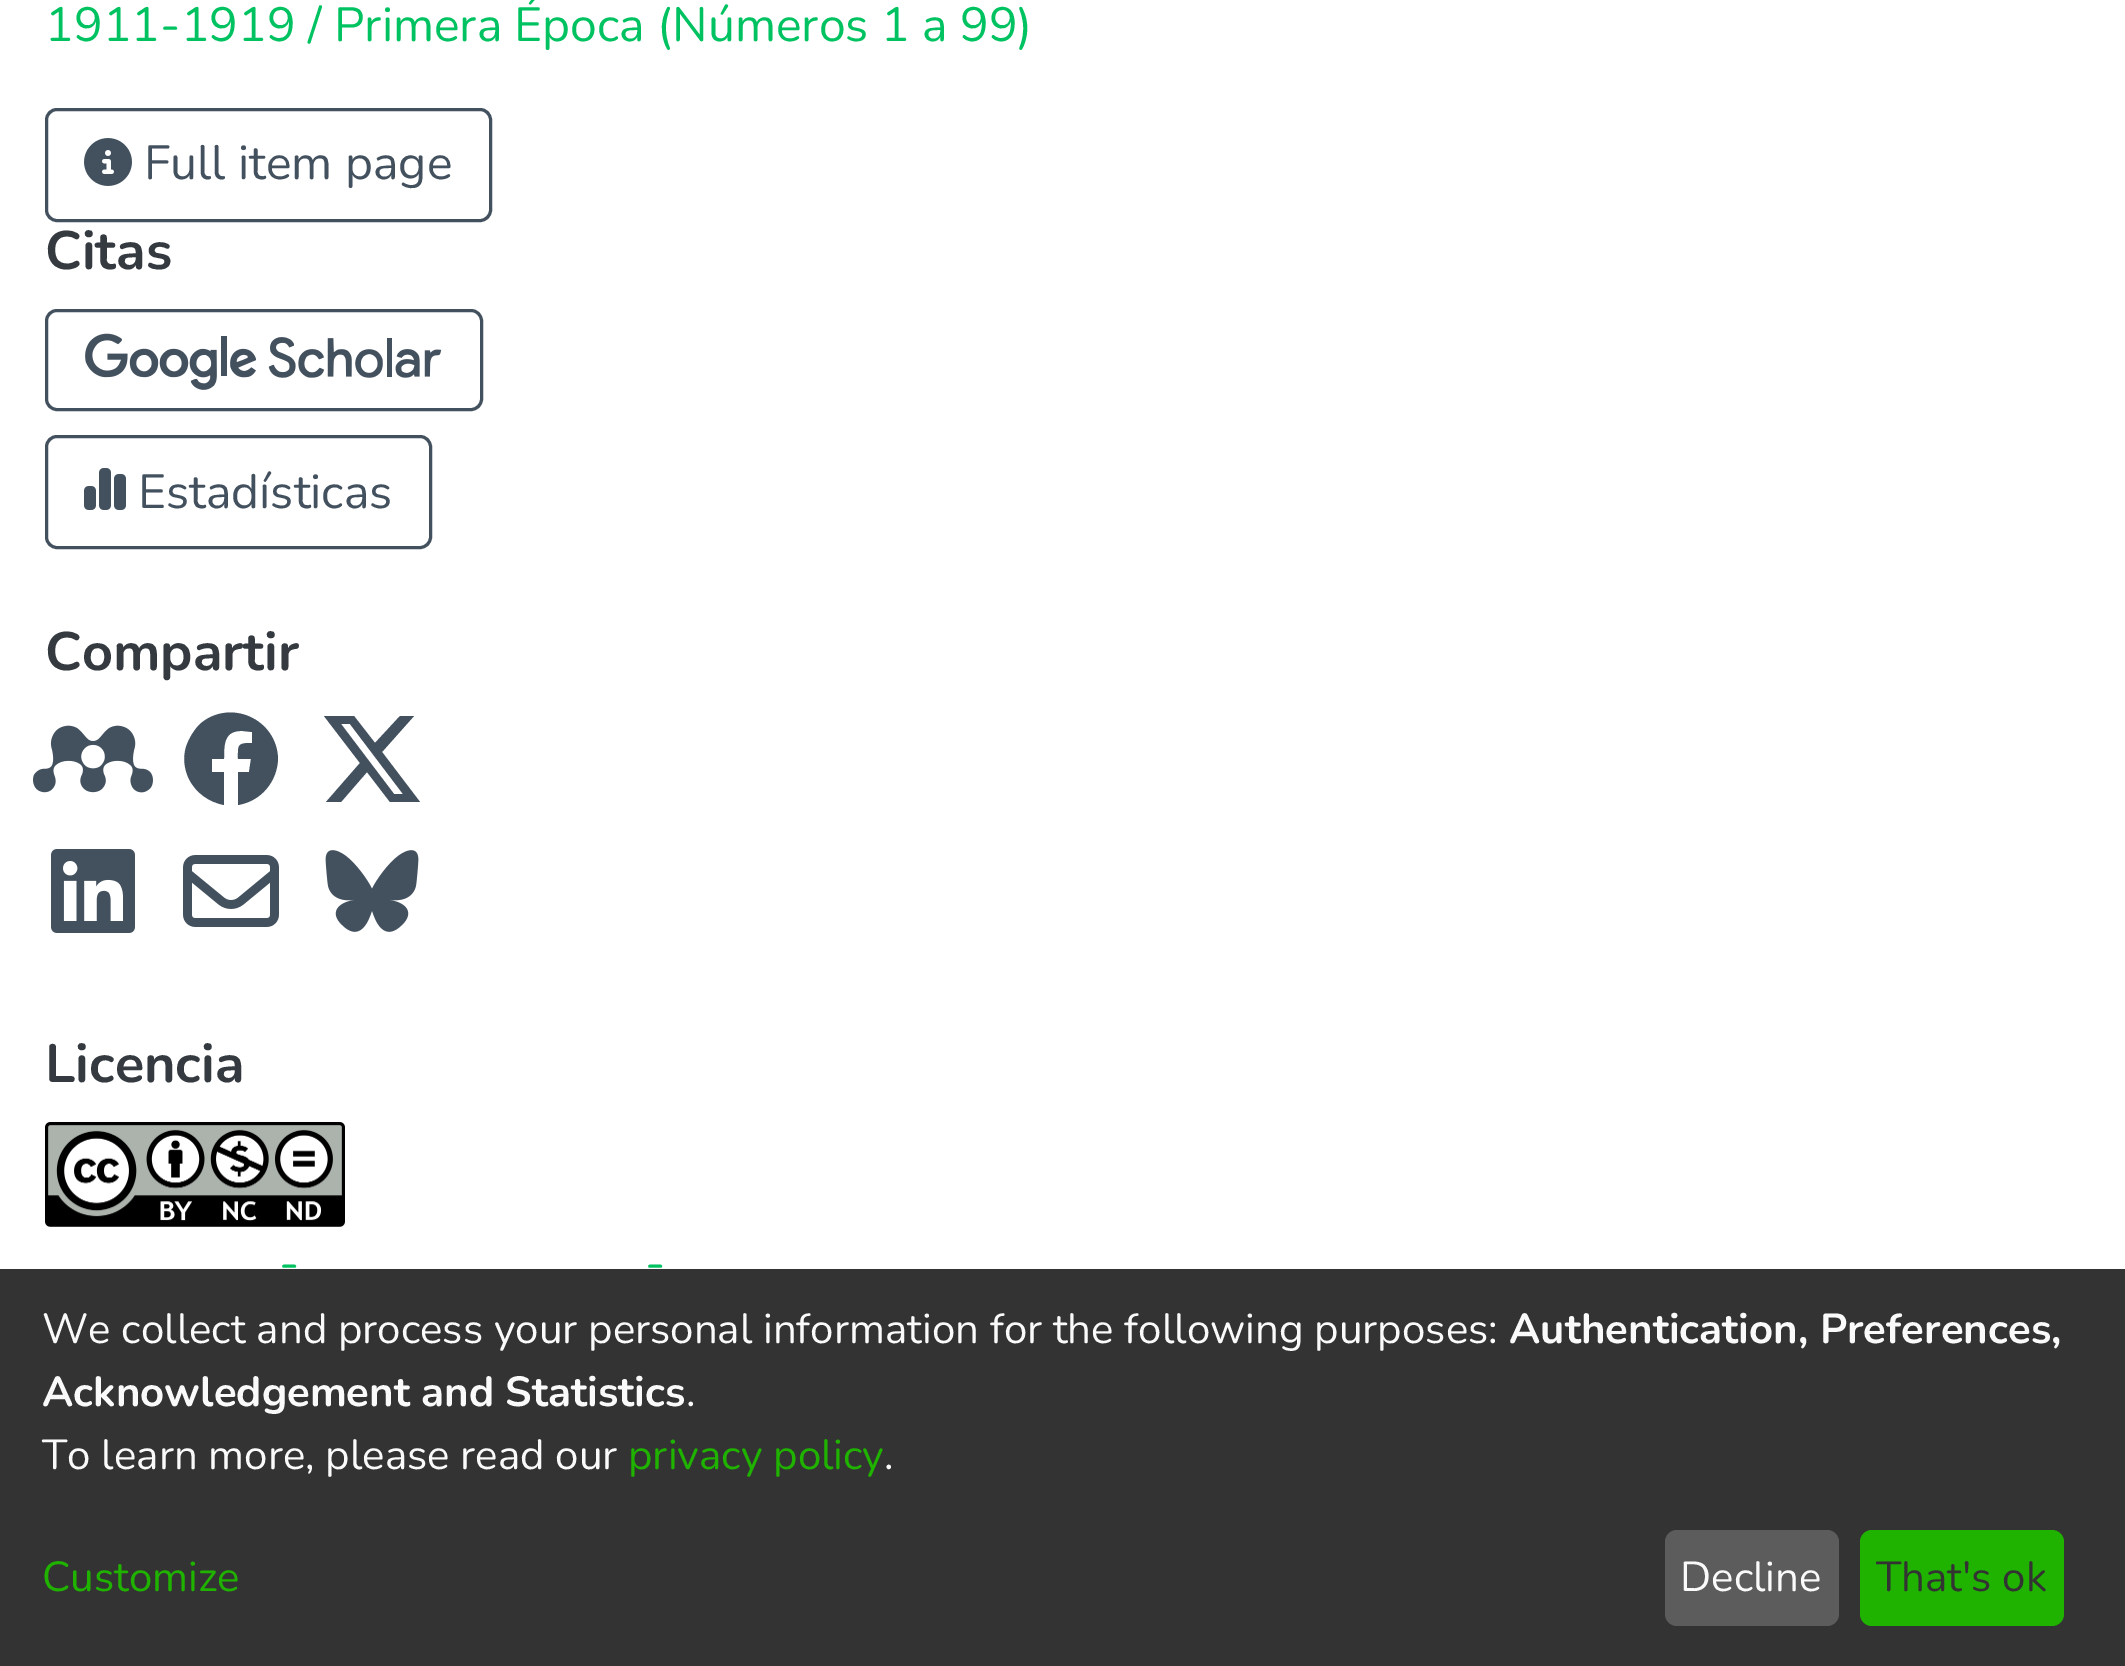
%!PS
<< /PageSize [2125 1666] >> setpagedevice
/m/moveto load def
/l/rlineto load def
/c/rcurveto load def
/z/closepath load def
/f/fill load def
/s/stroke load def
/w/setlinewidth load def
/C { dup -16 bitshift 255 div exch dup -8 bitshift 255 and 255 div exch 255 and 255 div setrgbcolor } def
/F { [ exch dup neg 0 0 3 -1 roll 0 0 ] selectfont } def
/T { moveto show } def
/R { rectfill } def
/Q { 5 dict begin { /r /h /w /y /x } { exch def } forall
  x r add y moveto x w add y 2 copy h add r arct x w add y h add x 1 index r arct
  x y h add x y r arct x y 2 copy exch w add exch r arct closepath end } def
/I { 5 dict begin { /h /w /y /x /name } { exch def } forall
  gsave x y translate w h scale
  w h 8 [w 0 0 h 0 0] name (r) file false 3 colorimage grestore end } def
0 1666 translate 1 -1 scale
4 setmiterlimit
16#FFFFFF C
0 0 2125 1666 R
/Nunito-Regular 48 F
16#00C261 C
(1911-1919 / Primera Época \(Números 1 a 99\)) 45 41 T
16#43515F C
3 w
46.5 109.5 444 111 10.5 Q s
(1.rgb) 84 138 48 48 I
(Full item page) 144 179 T
/Nunito-Bold 54 F
16#343A40 C
(Citas) 45 269 T
16#43515F C
46.5 310.5 435 99 10.5 Q s
(2.rgb) 85 333 357 57 I
46.5 436.5 384 111 10.5 Q s
(3.rgb) 84 468 42 42 I
/Nunito-Regular 48 F
(Estadísticas) 138 508 T
/Nunito-Bold 54 F
16#343A40 C
(Compartir) 45 670 T
(4.rgb) 33 725 120 68 I
16#43515F C
278 759 m -1 -40 -48 -61 -78 -35 c -6 6 -11 14 -14 23 c -3 10 -2 22 3 32 c 7 14 20 23 35 26 c 0 -33 l -12 0 l 0 -13 l 12 0 l 0 -15 0 -29 19 -28 c 9 1 l 0 11 l -15 0 -14 2 -14 16 c 13 0 l -2 13 l -11 0 l 0 33 l 23 -4 39 -23 40 -46 c z f
400 716 m 14 0 l -32 36 l 38 50 l -30 0 l -23 -30 l -26 30 l -15 0 l 34 -39 l -36 -47 l 30 0 l 21 27 l z 394 794 m 9 0 l -53 -70 l -9 0 l z f
(5.rgb) 51 849 84 84 I
(6.rgb) 183 855 96 72 I
(7.rgb) 325 850 94 82 I
16#343A40 C
(Licencia) 45 1082 T
(8.rgb) 45 1122 300 105 I
/Nunito-Regular 48 F
16#00C261 C
(-) 279 1279 T
(-) 645 1279 T
16#333333 C
0 1269 2125 397 R
/Nunito-Regular 42 F
16#FAFAFA C
(We collect and process your personal information for the following purposes:) 42 1343 T
/Nunito-Bold 42 F
(Authentication, Preferences,) 1509 1343 T
(Acknowledgement and Statistics) 42 1406 T
/Nunito-Regular 42 F
(.) 686 1406 T
(To learn more, please read our) 42 1469 T
16#1FB300 C
(privacy policy) 628 1469 T
16#FAFAFA C
(.) 884 1469 T
16#1FB300 C
(Customize) 42 1591 T
16#5C5C5C C
1665 1530 174 96 12 Q f
16#FAFAFA C
(Decline) 1680 1591 T
16#1FB300 C
1860 1530 204 96 12 Q f
16#333333 C
(That's ok) 1876 1591 T
showpage
